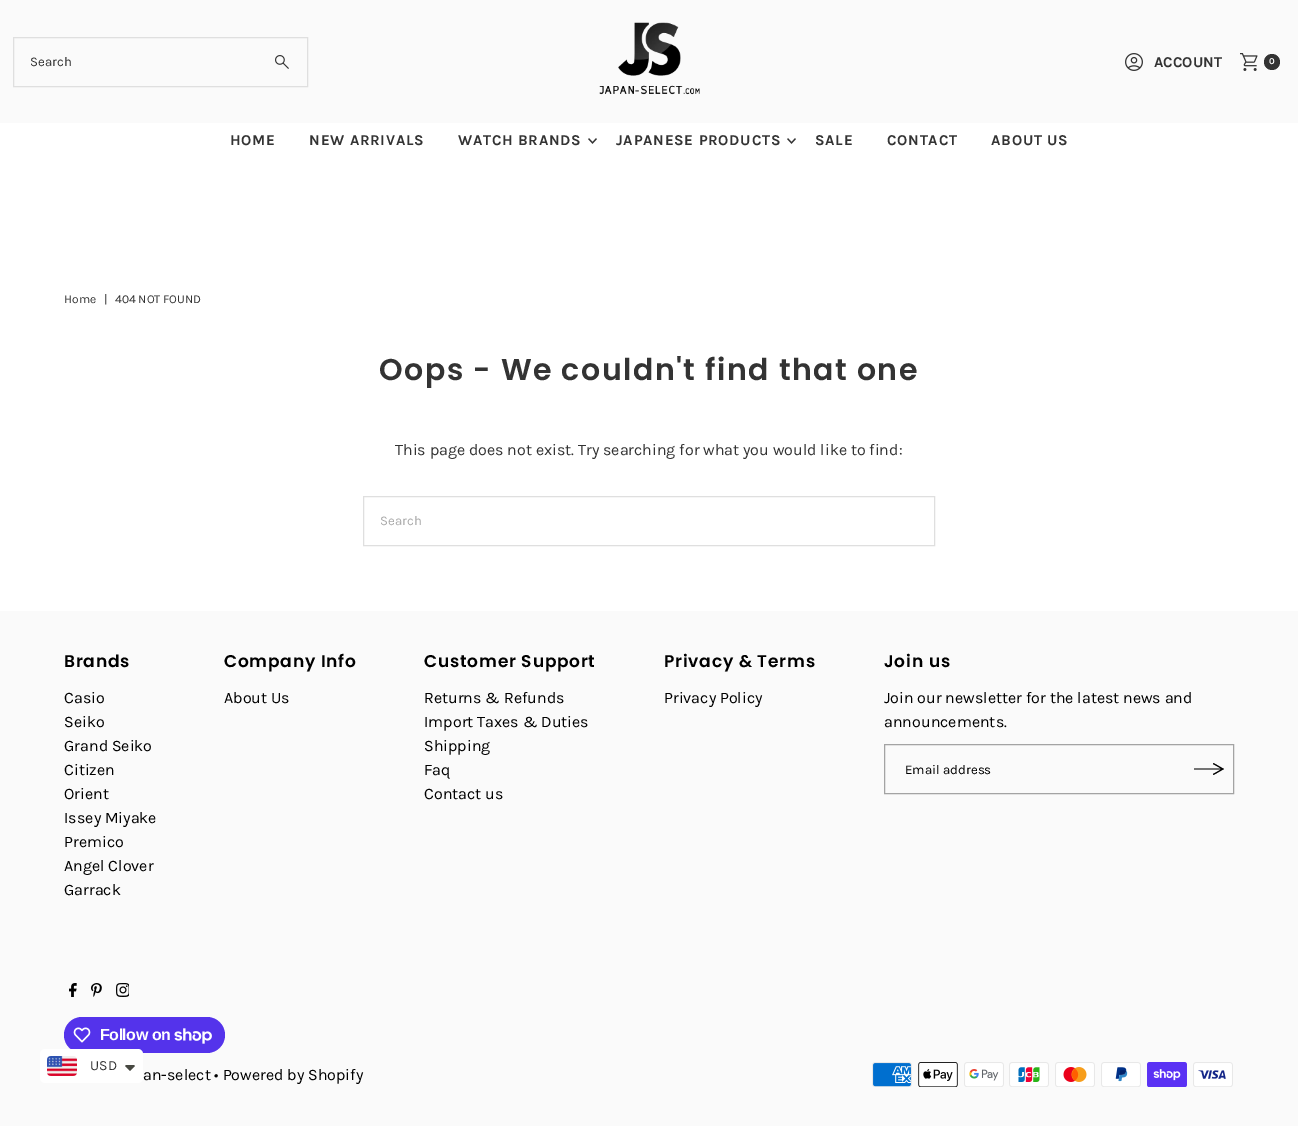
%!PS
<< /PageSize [1298 1126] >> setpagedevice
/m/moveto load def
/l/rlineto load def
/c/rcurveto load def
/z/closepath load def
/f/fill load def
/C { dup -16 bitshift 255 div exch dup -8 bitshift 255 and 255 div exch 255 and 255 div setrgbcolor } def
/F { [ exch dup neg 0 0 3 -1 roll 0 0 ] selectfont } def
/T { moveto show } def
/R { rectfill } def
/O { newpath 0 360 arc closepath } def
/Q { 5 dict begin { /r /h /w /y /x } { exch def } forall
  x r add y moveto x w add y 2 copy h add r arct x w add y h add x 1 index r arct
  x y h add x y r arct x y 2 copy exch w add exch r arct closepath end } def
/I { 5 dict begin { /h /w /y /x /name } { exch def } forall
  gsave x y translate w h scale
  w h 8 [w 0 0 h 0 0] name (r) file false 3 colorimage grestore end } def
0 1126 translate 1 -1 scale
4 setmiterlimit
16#FFFFFF C
0 0 1298 1126 R
16#FAFAFA C
0 0 1298 123 R
16#DFDFDF C
13.5 37.5 294 49 rectstroke
/Karla-Regular 13.25 F
16#333333 C
(Search) 30 66 T
(1.rgb) 275 55 14 14 I
(2.rgb) 599 22 101 73 I
(3.rgb) 1125 53 18 18 I
/Karla-Bold 15 F
(ACCOUNT) 1154 67 T
(4.rgb) 1240 53 18 18 I
1272 62 8 O f
/Karla-Bold 9 F
16#FFFFFF C
(0) 1269 64 T
/Karla-Bold 15 F
16#333333 C
230 145 m .75 0 (HOME) ashow
309 145 m .75 0 (NEW ARRIVALS) ashow
458 145 m .75 0 (WATCH BRANDS) ashow
(5.rgb) 588 138 9 6 I
616 145 m .75 0 (JAPANESE PRODUCTS) ashow
(5.rgb) 787 138 9 6 I
815 145 m .75 0 (SALE) ashow
887 145 m .75 0 (CONTACT) ashow
991 145 m .75 0 (ABOUT US) ashow
/Karla-Regular 12 F
(Home) 64 303 T
(|) 104 303 T
(404 NOT FOUND) 115 303 T
/Poppins-SemiBold 30 F
379 380 m 1.5 0 (Oops - We couldn't find that one) ashow
/Karla-Regular 16 F
(This page does not exist. Try searching for what you would like to find:) 395 455 T
16#DFDFDF C
363.5 496.5 571 49 rectstroke
/Karla-Regular 13.25 F
16#AAAAAA C
(Search) 380 525 T
16#FAFAFA C
0 611 1298 515 R
/Poppins-SemiBold 17 F
16#000000 C
64 667 m .8 0 (Brands) ashow
/Karla-Regular 16 F
(Casio) 64 703 T
(Seiko) 64 727 T
(Grand Seiko) 64 751 T
(Citizen) 64 775 T
(Orient) 64 799 T
(Issey Miyake) 64 823 T
(Premico) 64 847 T
(Angel Clover) 64 871 T
(Garrack) 64 895 T
/Poppins-SemiBold 17 F
224 667 m .8 0 (Company Info) ashow
/Karla-Regular 16 F
(About Us) 224 703 T
/Poppins-SemiBold 17 F
424 667 m .8 0 (Customer Support) ashow
/Karla-Regular 16 F
(Returns & Refunds) 424 703 T
(Import Taxes & Duties) 424 727 T
(Shipping) 424 751 T
(Faq) 424 775 T
(Contact us) 424 799 T
/Poppins-SemiBold 17 F
664 667 m .8 0 (Privacy & Terms) ashow
/Karla-Regular 16 F
(Privacy Policy) 664 703 T
/Poppins-SemiBold 17 F
884 667 m .8 0 (Join us) ashow
/Karla-Regular 16 F
(Join our newsletter for the latest news and) 884 703 T
(announcements.) 884 727 T
16#A3A3A3 C
884.5 744.5 349 49 rectstroke
/Karla-Regular 13.25 F
16#000000 C
(Email address) 905 774 T
1213.5 763 m 10.5 6 l -10.5 6 l -.5 -1 l 8 -4.5 l -27 0 l 0 -1 l 27 0 l -8 -4.5 l z f
(6.rgb) 69 983 8 14 I
(7.rgb) 91 983 11 14 I
(8.rgb) 116 983 13 14 I
16#5433EB C
64 1017 161 36 18 Q f
(9.rgb) 73 1027 18 16 I
/LiberationSans-Bold 16 F
16#FFFFFF C
100 1040 m -.5 0 (Follow on) ashow
(10.rgb) 174 1028 38 16 I
/Karla-Regular 16 F
16#000000 C
(an-select • Powered by Shopify) 143 1080 T
(11.rgb) 872 1062 40 25 I
(12.rgb) 918 1062 40 25 I
(13.rgb) 964 1062 40 25 I
(14.rgb) 1009 1062 40 25 I
(15.rgb) 1055 1062 40 25 I
(16.rgb) 1101 1062 40 25 I
(17.rgb) 1147 1062 40 25 I
(18.rgb) 1193 1062 40 25 I
16#FFFFFF C
40 1049 103 34 5 Q f
(19.rgb) 47 1056 30 20 I
/Karla-Regular 14 F
16#333333 C
(USD) 90 1070 T
16#474942 C
127 1065 m -1 0 -1.5 .5 -2 1 c 5 5 l 5 -5 l -1 -1 l z f
showpage
